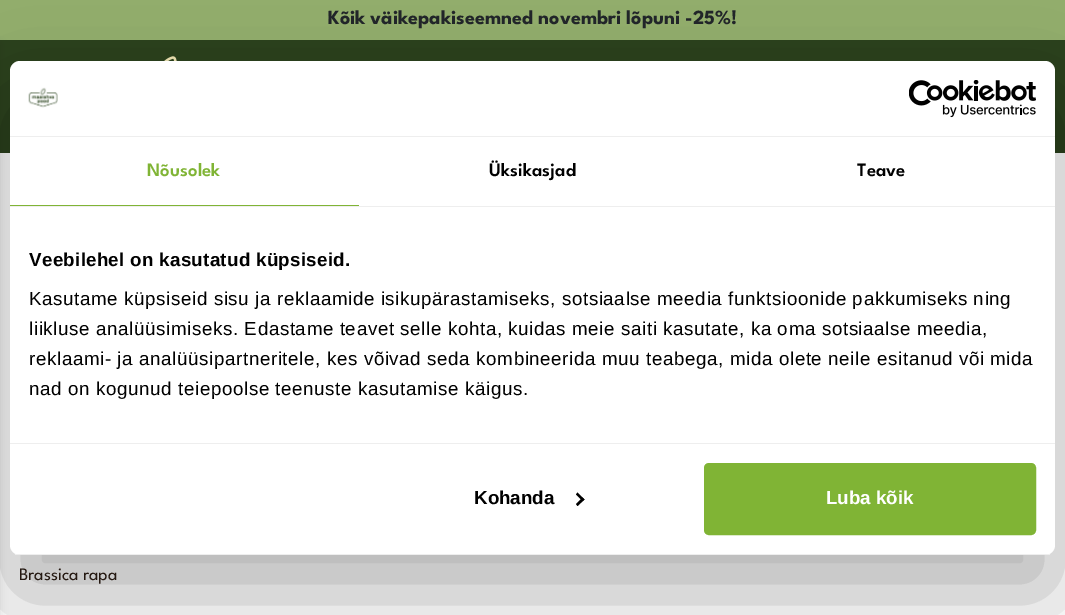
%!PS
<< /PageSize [1065 615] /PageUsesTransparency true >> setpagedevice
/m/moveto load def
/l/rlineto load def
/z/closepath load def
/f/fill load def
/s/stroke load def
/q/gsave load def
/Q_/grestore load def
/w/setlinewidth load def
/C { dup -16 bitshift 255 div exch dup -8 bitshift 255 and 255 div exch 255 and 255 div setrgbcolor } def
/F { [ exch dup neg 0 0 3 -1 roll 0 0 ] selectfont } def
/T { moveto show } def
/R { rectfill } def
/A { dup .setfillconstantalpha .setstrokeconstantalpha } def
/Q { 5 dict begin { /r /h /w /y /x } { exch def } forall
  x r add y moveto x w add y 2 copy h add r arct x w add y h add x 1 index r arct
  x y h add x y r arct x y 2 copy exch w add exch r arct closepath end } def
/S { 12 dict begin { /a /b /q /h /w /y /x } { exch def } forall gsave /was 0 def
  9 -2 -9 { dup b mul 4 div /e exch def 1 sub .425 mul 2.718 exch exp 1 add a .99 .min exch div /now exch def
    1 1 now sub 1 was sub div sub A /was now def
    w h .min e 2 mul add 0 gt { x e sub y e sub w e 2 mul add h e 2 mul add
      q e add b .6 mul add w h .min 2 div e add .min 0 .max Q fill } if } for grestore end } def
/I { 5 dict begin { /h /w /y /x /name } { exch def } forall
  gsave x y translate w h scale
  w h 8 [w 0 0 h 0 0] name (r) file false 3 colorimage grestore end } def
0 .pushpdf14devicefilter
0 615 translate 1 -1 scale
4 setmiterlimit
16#FFFFFF C
0 0 1065 615 R
16#92AD6C C
0 0 1065 40 R
/LeagueSpartan-Bold 20 F
16#212529 C
(Kõik väikepakiseemned novembri lõpuni -25%!) 328 24 T
16#2A421C C
0 40 1065 113 R
16#000000 C
-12 44 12 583 0 4 .09 S
(1.rgb) 164 56 13 5 I
10 101 1045 494 10 42.5 .3 S
16#FFFFFF C
10 61 1045 494 10 Q f
16#EEEEEE C
10 136 1045 1 R
(2.rgb) 28 87 30 21 I
(3.rgb) 909 80 127 38 I
10 206 1045 1 R
16#80B435 C
10 205 349 1 R
/LeagueSpartan-SemiBold 18.75 F
147 176 m .1 0 (Nõusolek) ashow
16#000000 C
489 176 m .1 0 (Üksikasjad) ashow
857 176 m .1 0 (Teave) ashow
16#EEEEEE C
10 443 1045 1 R
/LiberationSans-Bold 18.75 F
16#000000 C
29 266 m .3 0 (Veebilehel on kasutatud küpsiseid.) ashow
/LiberationSans-Regular 18.75 F
29 305 m .62 0 (Kasutame küpsiseid sisu ja reklaamide isikupärastamiseks, sotsiaalse meedia funktsioonide pakkumiseks ning) ashow
29 335 m .62 0 (liikluse analüüsimiseks. Edastame teavet selle kohta, kuidas meie saiti kasutate, ka oma sotsiaalse meedia,) ashow
29 365 m .62 0 (reklaami- ja analüüsipartneritele, kes võivad seda kombineerida muu teabega, mida olete neile esitanud või mida) ashow
29 395 m .62 0 (nad on kogunud teiepoolse teenuste kasutamise käigus.) ashow
q
10 61 1045 494 10 Q clip newpath
16#EEEEEE C
10 554 1045 1 R
Q_
/LiberationSans-Bold 18.75 F
(Kohanda) 474 504 T
577.5 492.5 m 7 7 l -2 1.5 l -6.5 -6.5 l z f
582.5 497.5 m 2 2 l -7 6.5 l -1.5 -2 l z f
16#80B435 C
705.5 464.5 329 69 3.5 Q q f Q_
3 w
s
16#FFFFFF C
(Luba kõik) 826 504 T
/LeagueSpartan-Regular 17.5 F
16#241811 C
(Brassica rapa) 19 580 T
.poppdf14devicefilter showpage
